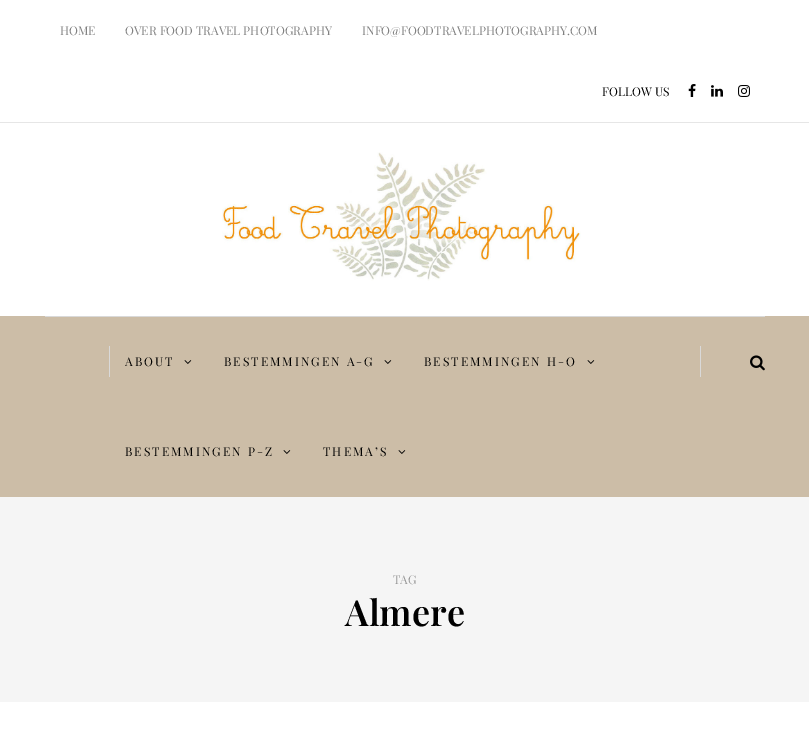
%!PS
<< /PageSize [809 749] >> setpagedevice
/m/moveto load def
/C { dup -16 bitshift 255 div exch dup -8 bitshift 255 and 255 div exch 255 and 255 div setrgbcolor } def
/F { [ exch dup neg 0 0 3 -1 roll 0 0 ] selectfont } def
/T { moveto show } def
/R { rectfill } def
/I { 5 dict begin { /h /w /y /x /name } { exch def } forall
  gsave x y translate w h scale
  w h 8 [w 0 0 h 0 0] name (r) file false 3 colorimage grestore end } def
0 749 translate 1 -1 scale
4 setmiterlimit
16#FFFFFF C
0 0 809 749 R
16#E6E6E6 C
0 122 809 1 R
/PlayfairDisplay-Regular 12 F
16#808080 C
(HOME) 60 35 T
(OVER FOOD TRAVEL PHOTOGRAPHY) 125 35 T
(INFO@FOODTRAVELPHOTOGRAPHY.COM) 362 35 T
16#000000 C
(FOLLOW US) 602 96 T
(1.rgb) 688 84 8 13 I
(2.rgb) 711 85 12 12 I
(3.rgb) 738 85 12 12 I
(4.rgb) 222 152 359 129 I
16#CCBDA7 C
0 316 809 181 R
16#D9D9D9 C
109 346 1 31 R
45 316 720 1 R
16#000000 C
125 366 m 2 0 (ABOUT) ashow
(5.rgb) 184 360 8 4 I
224 366 m 2 0 (BESTEMMINGEN A-G) ashow
(5.rgb) 384 360 8 4 I
424 366 m 2 0 (BESTEMMINGEN H-O) ashow
(5.rgb) 587 360 8 4 I
125 456 m 2 0 (BESTEMMINGEN P-Z) ashow
(5.rgb) 283 450 8 4 I
323 456 m 2 0 (THEMA’S) ashow
(5.rgb) 398 450 8 4 I
16#D9D9D9 C
700 346 1 31 R
(6.rgb) 750 355 15 16 I
16#F5F5F5 C
0 497 809 205 R
16#989898 C
(TAG) 393 584 T
/PlayfairDisplay-SemiBold 36 F
16#000000 C
(Almere) 345 626 T
showpage
